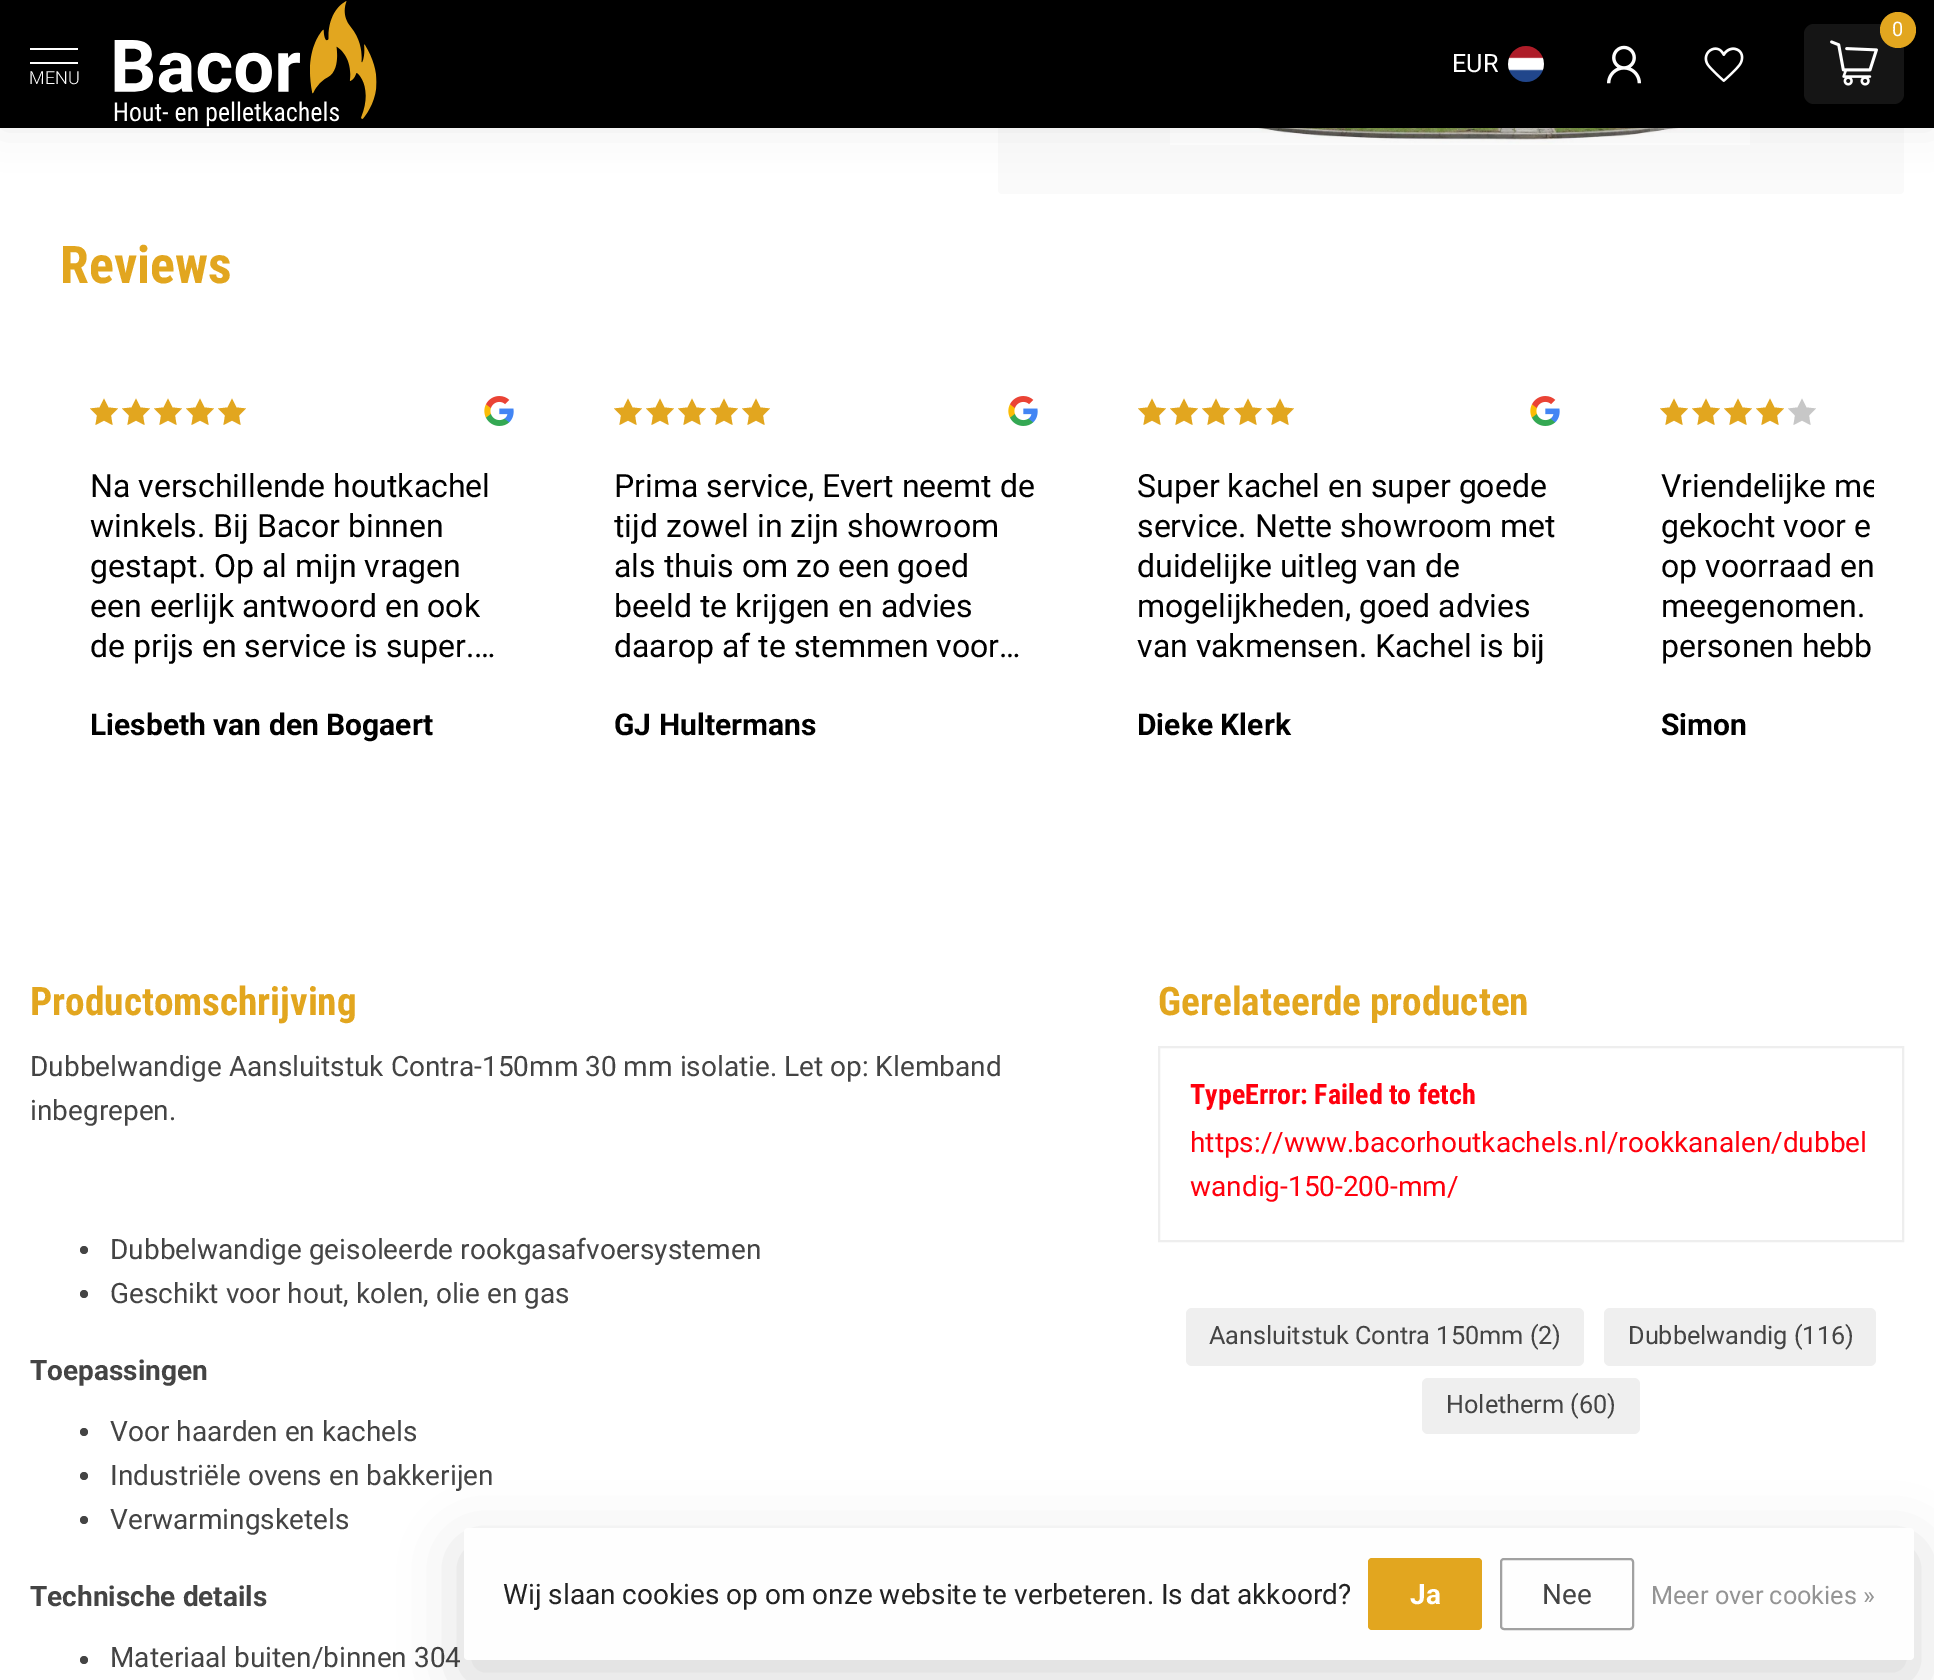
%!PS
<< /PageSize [1934 1680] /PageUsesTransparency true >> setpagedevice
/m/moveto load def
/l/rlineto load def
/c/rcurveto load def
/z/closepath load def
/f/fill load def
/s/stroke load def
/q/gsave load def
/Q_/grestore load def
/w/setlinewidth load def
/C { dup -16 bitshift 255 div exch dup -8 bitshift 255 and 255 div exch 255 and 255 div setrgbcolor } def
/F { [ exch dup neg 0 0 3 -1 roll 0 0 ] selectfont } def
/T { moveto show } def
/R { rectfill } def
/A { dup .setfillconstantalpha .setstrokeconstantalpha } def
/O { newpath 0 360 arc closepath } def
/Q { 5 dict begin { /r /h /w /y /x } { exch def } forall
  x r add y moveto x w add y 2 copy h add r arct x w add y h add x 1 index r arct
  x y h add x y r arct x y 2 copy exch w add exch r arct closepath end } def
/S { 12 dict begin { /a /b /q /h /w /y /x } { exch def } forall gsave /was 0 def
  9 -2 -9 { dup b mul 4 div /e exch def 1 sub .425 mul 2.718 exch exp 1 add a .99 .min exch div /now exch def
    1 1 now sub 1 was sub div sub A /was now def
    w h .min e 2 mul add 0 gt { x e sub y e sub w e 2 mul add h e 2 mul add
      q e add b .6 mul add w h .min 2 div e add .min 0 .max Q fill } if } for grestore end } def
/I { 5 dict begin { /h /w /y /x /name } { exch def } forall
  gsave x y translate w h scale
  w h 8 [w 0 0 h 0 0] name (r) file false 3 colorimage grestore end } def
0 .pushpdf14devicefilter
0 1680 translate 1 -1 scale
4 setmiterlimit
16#FFFFFF C
0 0 1934 1680 R
16#FAFAFA C
998 -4 m 906 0 l 0 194 l 0 2 -2 4 -4 4 c -898 0 l -2 0 -4 -2 -4 -4 c z f
(6.rgb) 1170 128 580 17 I
16#000000 C
0 -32 1934 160 0 20 .07 S
0 0 1934 128 R
16#151515 C
1804 24 100 80 10 Q f
16#E2A61F C
1898 30 18 O f
/Roboto-Regular 20 F
16#FFFFFF C
(0) 1892 36 T
(1.rgb) 1830 40 48 46 I
/Roboto-Regular 25.25 F
(EUR) 1452 72 T
(2.rgb) 1508 46 36 36 I
(3.rgb) 1607 45 34 39 I
(4.rgb) 1704 47 40 35 I
30 48 48 2 R
30 62 48 2 R
/Roboto-Light 18 F
(MENU) 29 84 T
(5.rgb) 114 1 263 126 I
/RobotoCondensed-Bold 52 F
16#E2A61F C
(Reviews) 60 283 T
104 398.5 m 4.5 9 l 9.5 1 l -7 7 l 1.5 9.5 l -8.5 -4.5 l -8.5 4.5 l 1.5 -9.5 l -7 -7 l 9.5 -1 l z 136 398.5 m 4.5 9 l 9.5 1 l -7 7 l 1.5 9.5 l -8.5 -4.5 l -8.5 4.5 l 1.5 -9.5 l -7 -7 l 9.5 -1 l z f
168 398.5 m 4.5 9 l 9.5 1 l -7 7 l 1.5 9.5 l -8.5 -4.5 l -8.5 4.5 l 1.5 -9.5 l -7 -7 l 9.5 -1 l z 200 398.5 m 4.5 9 l 9.5 1 l -7 7 l 1.5 9.5 l -8.5 -4.5 l -8.5 4.5 l 1.5 -9.5 l -7 -7 l 9.5 -1 l z f
232 398.5 m 4.5 9 l 9.5 1 l -7 7 l 1.5 9.5 l -8.5 -4.5 l -8.5 4.5 l 1.5 -9.5 l -7 -7 l 9.5 -1 l z f
(7.rgb) 484 396 30 30 I
/Roboto-Regular 32 F
16#000000 C
(Na verschillende houtkachel) 90 497 T
(winkels. Bij Bacor binnen) 90 537 T
(gestapt. Op al mijn vragen) 90 577 T
(een eerlijk antwoord en ook) 90 617 T
(de prijs en service is super.…) 90 657 T
/Roboto-Bold 30 F
(Liesbeth van den Bogaert) 90 735 T
16#E2A61F C
628 398.5 m 4.5 9 l 9.5 1 l -7 7 l 1.5 9.5 l -8.5 -4.5 l -8.5 4.5 l 1.5 -9.5 l -7 -7 l 9.5 -1 l z 660 398.5 m 4.5 9 l 9.5 1 l -7 7 l 1.5 9.5 l -8.5 -4.5 l -8.5 4.5 l 1.5 -9.5 l -7 -7 l 9.5 -1 l z f
692 398.5 m 4.5 9 l 9.5 1 l -7 7 l 1.5 9.5 l -8.5 -4.5 l -8.5 4.5 l 1.5 -9.5 l -7 -7 l 9.5 -1 l z 724 398.5 m 4.5 9 l 9.5 1 l -7 7 l 1.5 9.5 l -8.5 -4.5 l -8.5 4.5 l 1.5 -9.5 l -7 -7 l 9.5 -1 l z f
756 398.5 m 4.5 9 l 9.5 1 l -7 7 l 1.5 9.5 l -8.5 -4.5 l -8.5 4.5 l 1.5 -9.5 l -7 -7 l 9.5 -1 l z f
(7.rgb) 1008 396 30 30 I
/Roboto-Regular 32 F
16#000000 C
(Prima service, Evert neemt de) 614 497 T
q
614 466 424 200 rectclip
(tijd zowel in zijn showroom) 614 537 T
Q_
(als thuis om zo een goed) 614 577 T
(beeld te krijgen en advies) 614 617 T
(daarop af te stemmen voor…) 614 657 T
/Roboto-Bold 30 F
(GJ Hultermans) 614 735 T
16#E2A61F C
1152 398.5 m 4.5 9 l 9.5 1 l -7 7 l 1.5 9.5 l -8.5 -4.5 l -8.5 4.5 l 1.5 -9.5 l -7 -7 l 9.5 -1 l z 1184 398.5 m 4.5 9 l 9.5 1 l -7 7 l 1.5 9.5 l -8.5 -4.5 l -8.5 4.5 l 1.5 -9.5 l -7 -7 l 9.5 -1 l z f
1216 398.5 m 4.5 9 l 9.5 1 l -7 7 l 1.5 9.5 l -8.5 -4.5 l -8.5 4.5 l 1.5 -9.5 l -7 -7 l 9.5 -1 l z 1248 398.5 m 4.5 9 l 9.5 1 l -7 7 l 1.5 9.5 l -8.5 -4.5 l -8.5 4.5 l 1.5 -9.5 l -7 -7 l 9.5 -1 l z f
1280 398.5 m 4.5 9 l 9.5 1 l -7 7 l 1.5 9.5 l -8.5 -4.5 l -8.5 4.5 l 1.5 -9.5 l -7 -7 l 9.5 -1 l z f
(7.rgb) 1530 396 30 30 I
/Roboto-Regular 32 F
16#000000 C
(Super kachel en super goede) 1137 497 T
(service. Nette showroom met) 1137 537 T
(duidelijke uitleg van de) 1137 577 T
(mogelijkheden, goed advies) 1137 617 T
(van vakmensen. Kachel is bij) 1137 657 T
/Roboto-Bold 30 F
(Dieke Klerk) 1137 735 T
16#E2A61F C
1674 398.5 m 4.5 9 l 9.5 1 l -7 7 l 1.5 9.5 l -8.5 -4.5 l -8.5 4.5 l 1.5 -9.5 l -7 -7 l 9.5 -1 l z 1706 398.5 m 4.5 9 l 9.5 1 l -7 7 l 1.5 9.5 l -8.5 -4.5 l -8.5 4.5 l 1.5 -9.5 l -7 -7 l 9.5 -1 l z f
1738 398.5 m 4.5 9 l 9.5 1 l -7 7 l 1.5 9.5 l -8.5 -4.5 l -8.5 4.5 l 1.5 -9.5 l -7 -7 l 9.5 -1 l z 1770 398.5 m 4.5 9 l 9.5 1 l -7 7 l 1.5 9.5 l -8.5 -4.5 l -8.5 4.5 l 1.5 -9.5 l -7 -7 l 9.5 -1 l z f
16#C7C7C7 C
1802 398.5 m 4.5 9 l 9.5 1 l -7 7 l 1.5 9.5 l -8.5 -4.5 l -8.5 4.5 l 1.5 -9.5 l -7 -7 l 9.5 -1 l z f
q
1660 466 214 200 rectclip
/Roboto-Regular 32 F
16#000000 C
(Vriendelijke me) 1661 497 T
Q_
/Roboto-Regular 32 F
16#000000 C
(gekocht voor e) 1661 537 T
(op voorraad en) 1661 577 T
(meegenomen.) 1661 617 T
(personen hebb) 1661 657 T
/Roboto-Bold 30 F
(Simon) 1661 735 T
/RobotoCondensed-Bold 39.25 F
16#E2A61F C
(Productomschrijving) 30 1015 T
/Roboto-Regular 28 F
16#444444 C
(Dubbelwandige Aansluitstuk Contra-150mm 30 mm isolatie. Let op: Klemband) 30 1076 T
(inbegrepen.) 30 1120 T
84 1250 4 O f
(Dubbelwandige geisoleerde rookgasafvoersystemen) 110 1259 T
84 1294 4 O f
(Geschikt voor hout, kolen, olie en gas) 110 1303 T
/Roboto-Bold 28 F
(Toepassingen) 30 1380 T
84 1432 4 O f
/Roboto-Regular 28 F
(Voor haarden en kachels) 110 1441 T
84 1476 4 O f
(Industriële ovens en bakkerijen) 110 1485 T
84 1520 4 O f
(Verwarmingsketels) 110 1529 T
/Roboto-Bold 28 F
(Technische details) 30 1606 T
84 1660 4 O f
/Roboto-Regular 28 F
(Materiaal buiten/binnen 304) 110 1667 T
/RobotoCondensed-Bold 39.25 F
16#E2A61F C
(Gerelateerde producten) 1158 1015 T
16#EEEEEE C
2 w
1159 1047 744 194 rectstroke
/RobotoCondensed-Bold 28 F
16#FF000D C
(TypeError: Failed to fetch) 1190 1104 T
/Roboto-Regular 28 F
(https://www.bacorhoutkachels.nl/rookkanalen/dubbel) 1190 1152 T
(wandig-150-200-mm/) 1190 1196 T
16#EFEFEF C
1186 1308 398 58 6 Q f
/Roboto-Regular 25.25 F
16#444444 C
(Aansluitstuk Contra 150mm \(2\)) 1209 1344 T
16#EFEFEF C
1604 1308 272 58 6 Q f
16#444444 C
(Dubbelwandig \(116\)) 1628 1344 T
16#EFEFEF C
1422 1378 218 56 6 Q f
16#444444 C
(Holetherm \(60\)) 1446 1413 T
16#000000 C
464 1548 1450 132 4 30 .15 S
16#FEFEFE C
464 1528 1450 132 4 Q f
/Roboto-Regular 28 F
16#222222 C
(Wij slaan cookies op om onze website te verbeteren. Is dat akkoord?) 503 1604 T
16#E2A61F C
1368 1558 114 72 4 Q f
/Roboto-Bold 28 F
16#FFFFFF C
(Ja) 1410 1604 T
16#A1A1A1 C
1501 1559 132 70 3 Q s
/Roboto-Regular 28 F
16#444444 C
(Nee) 1542 1604 T
/Roboto-Regular 25.25 F
16#949494 C
(Meer over cookies ») 1651 1604 T
.poppdf14devicefilter showpage
